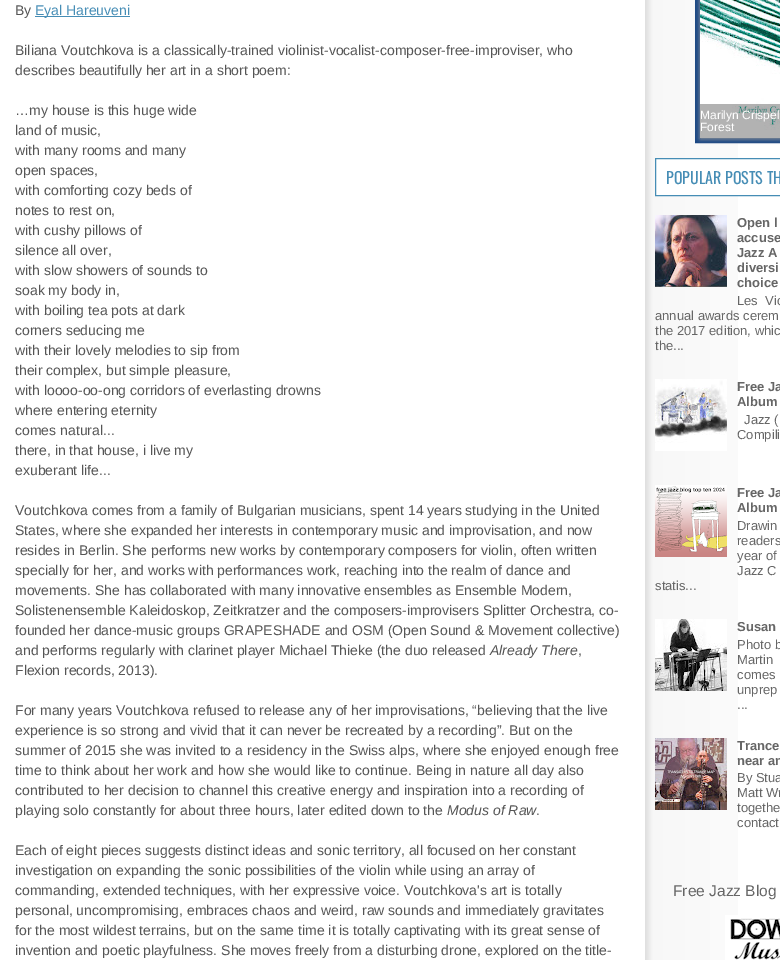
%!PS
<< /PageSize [780 960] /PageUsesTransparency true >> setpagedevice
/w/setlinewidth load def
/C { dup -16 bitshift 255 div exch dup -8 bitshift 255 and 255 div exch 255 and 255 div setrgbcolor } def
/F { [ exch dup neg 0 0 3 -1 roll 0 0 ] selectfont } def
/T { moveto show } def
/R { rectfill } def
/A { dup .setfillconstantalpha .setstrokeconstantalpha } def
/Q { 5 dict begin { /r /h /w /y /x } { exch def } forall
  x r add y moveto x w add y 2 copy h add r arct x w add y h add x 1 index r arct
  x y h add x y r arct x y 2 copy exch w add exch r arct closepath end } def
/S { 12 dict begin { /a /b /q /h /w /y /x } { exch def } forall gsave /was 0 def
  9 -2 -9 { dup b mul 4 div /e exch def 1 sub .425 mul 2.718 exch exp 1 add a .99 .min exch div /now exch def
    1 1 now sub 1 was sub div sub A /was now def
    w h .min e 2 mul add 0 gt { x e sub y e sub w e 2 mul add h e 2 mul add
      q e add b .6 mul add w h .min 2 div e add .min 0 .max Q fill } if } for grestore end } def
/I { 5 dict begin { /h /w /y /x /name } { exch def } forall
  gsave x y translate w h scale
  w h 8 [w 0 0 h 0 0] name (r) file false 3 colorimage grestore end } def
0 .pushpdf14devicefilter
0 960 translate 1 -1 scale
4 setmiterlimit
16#FFFFFF C
0 0 780 960 R
(1.rgb) 645 0 93 960 I
/LiberationSans-Regular 14 F
16#555555 C
(By) 15 15 T
16#468DB5 C
35 16 95 1 R
(Eyal Hareuveni) 35 15 T
16#555555 C
(Biliana Voutchkova is a classically-trained violinist-vocalist-composer-free-improviser, who) 15 55 T
(describes beautifully her art in a short poem:) 15 75 T
(…my house is this huge wide) 15 115 T
(land of music,) 15 135 T
(with many rooms and many) 15 155 T
(open spaces,) 15 175 T
(with comforting cozy beds of) 15 195 T
(notes to rest on,) 15 215 T
(with cushy pillows of) 15 235 T
(silence all over,) 15 255 T
(with slow showers of sounds to) 15 275 T
(soak my body in,) 15 295 T
(with boiling tea pots at dark) 15 315 T
(corners seducing me) 15 335 T
(with their lovely melodies to sip from) 15 355 T
(their complex, but simple pleasure,) 15 375 T
(with loooo-oo-ong corridors of everlasting drowns) 15 395 T
(where entering eternity) 15 415 T
(comes natural...) 15 435 T
(there, in that house, i live my) 15 455 T
(exuberant life...) 15 475 T
(Voutchkova comes from a family of Bulgarian musicians, spent 14 years studying in the United) 15 515 T
(States, where she expanded her interests in contemporary music and improvisation, and now) 15 535 T
(resides in Berlin. She performs new works by contemporary composers for violin, often written) 15 555 T
(specially for her, and works with performances work, reaching into the realm of dance and) 15 575 T
(movements. She has collaborated with many innovative ensembles as Ensemble Modern,) 15 595 T
(Solistenensemble Kaleidoskop, Zeitkratzer and the composers-improvisers Splitter Orchestra, co-) 15 615 T
(founded her dance-music groups GRAPESHADE and OSM \(Open Sound & Movement collective\)) 15 635 T
(and performs regularly with clarinet player Michael Thieke \(the duo released) 15 655 T
/LiberationSans-Italic 14 F
(Already There) 490 655 T
/LiberationSans-Regular 14 F
(,) 578 655 T
(Flexion records, 2013\).) 15 675 T
(For many years Voutchkova refused to release any of her improvisations, “believing that the live) 15 715 T
(experience is so strong and vivid that it can never be recreated by a recording”. But on the) 15 735 T
(summer of 2015 she was invited to a residency in the Swiss alps, where she enjoyed enough free) 15 755 T
(time to think about her work and how she would like to continue. Being in nature all day also) 15 775 T
(contributed to her decision to channel this creative energy and inspiration into a recording of) 15 795 T
(playing solo constantly for about three hours, later edited down to the) 15 815 T
/LiberationSans-Italic 14 F
(Modus of Raw) 447 815 T
/LiberationSans-Regular 14 F
(.) 536 815 T
(Each of eight pieces suggests distinct ideas and sonic territory, all focused on her constant) 15 855 T
(investigation on expanding the sonic possibilities of the violin while using an array of) 15 875 T
(commanding, extended techniques, with her expressive voice. Voutchkova's art is totally) 15 895 T
(personal, uncompromising, embraces chaos and weird, raw sounds and immediately gravitates) 15 915 T
(for the most wildest terrains, but on the same time it is totally captivating with its great sense of) 15 935 T
(invention and poetic playfulness. She moves freely from a disturbing drone, explored on the title-) 15 955 T
16#184583 C
5 w
697.5 -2.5 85 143 rectstroke
16#999999 C
700 -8 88 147 0 2.5 1 S
(2.rgb) 700 0 80 138 I
0.3 A
16#000000 C
700 104 80 34 R
/LiberationSans-Regular 12 F
1 A
16#FFFFFF C
(Marilyn Crispel) 700 119 T
(Forest) 700 131 T
656 159 82 36 R
16#468DB5 C
1 w
655.5 158.5 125 37 rectstroke
/Oswald-Regular 16 F
(POPULAR POSTS TH) 666 184 T
(3.rgb) 655 215 72 72 I
/LiberationSans-Bold 13 F
16#666666 C
(Open l) 737 227 T
(accuse) 737 242 T
(Jazz A) 737 257 T
(diversi) 737 272 T
(choice) 737 287 T
/LiberationSans-Regular 13 F
(Les  Vic) 737 305 T
(annual awards cerem) 655 320 T
(the 2017 edition, whic) 655 335 T
(the...) 655 350 T
(4.rgb) 655 379 72 72 I
/LiberationSans-Bold 13 F
(Free Ja) 737 391 T
(Album) 737 406 T
/LiberationSans-Regular 13 F
(Jazz \() 744 424 T
(Compili) 737 439 T
(5.rgb) 655 485 72 72 I
/LiberationSans-Bold 13 F
(Free Ja) 737 497 T
(Album) 737 512 T
/LiberationSans-Regular 13 F
(Drawin) 737 530 T
(readers) 737 545 T
(year of) 737 560 T
(Jazz C) 737 575 T
(statis...) 655 590 T
(6.rgb) 655 619 72 72 I
/LiberationSans-Bold 13 F
(Susan) 737 631 T
/LiberationSans-Regular 13 F
(Photo b) 737 649 T
(Martin) 737 664 T
(comes) 737 679 T
(unprep) 737 694 T
(...) 737 709 T
(7.rgb) 655 738 72 72 I
/LiberationSans-Bold 13 F
(Trance) 737 750 T
(near an) 737 765 T
/LiberationSans-Regular 13 F
(By Stua) 737 782 T
(Matt Wr) 737 797 T
(togethe) 737 812 T
(contact) 737 827 T
/LiberationSans-Regular 15.5 F
(Free Jazz Blog) 673 896 T
(8.rgb) 725 915 55 45 I
.poppdf14devicefilter showpage
